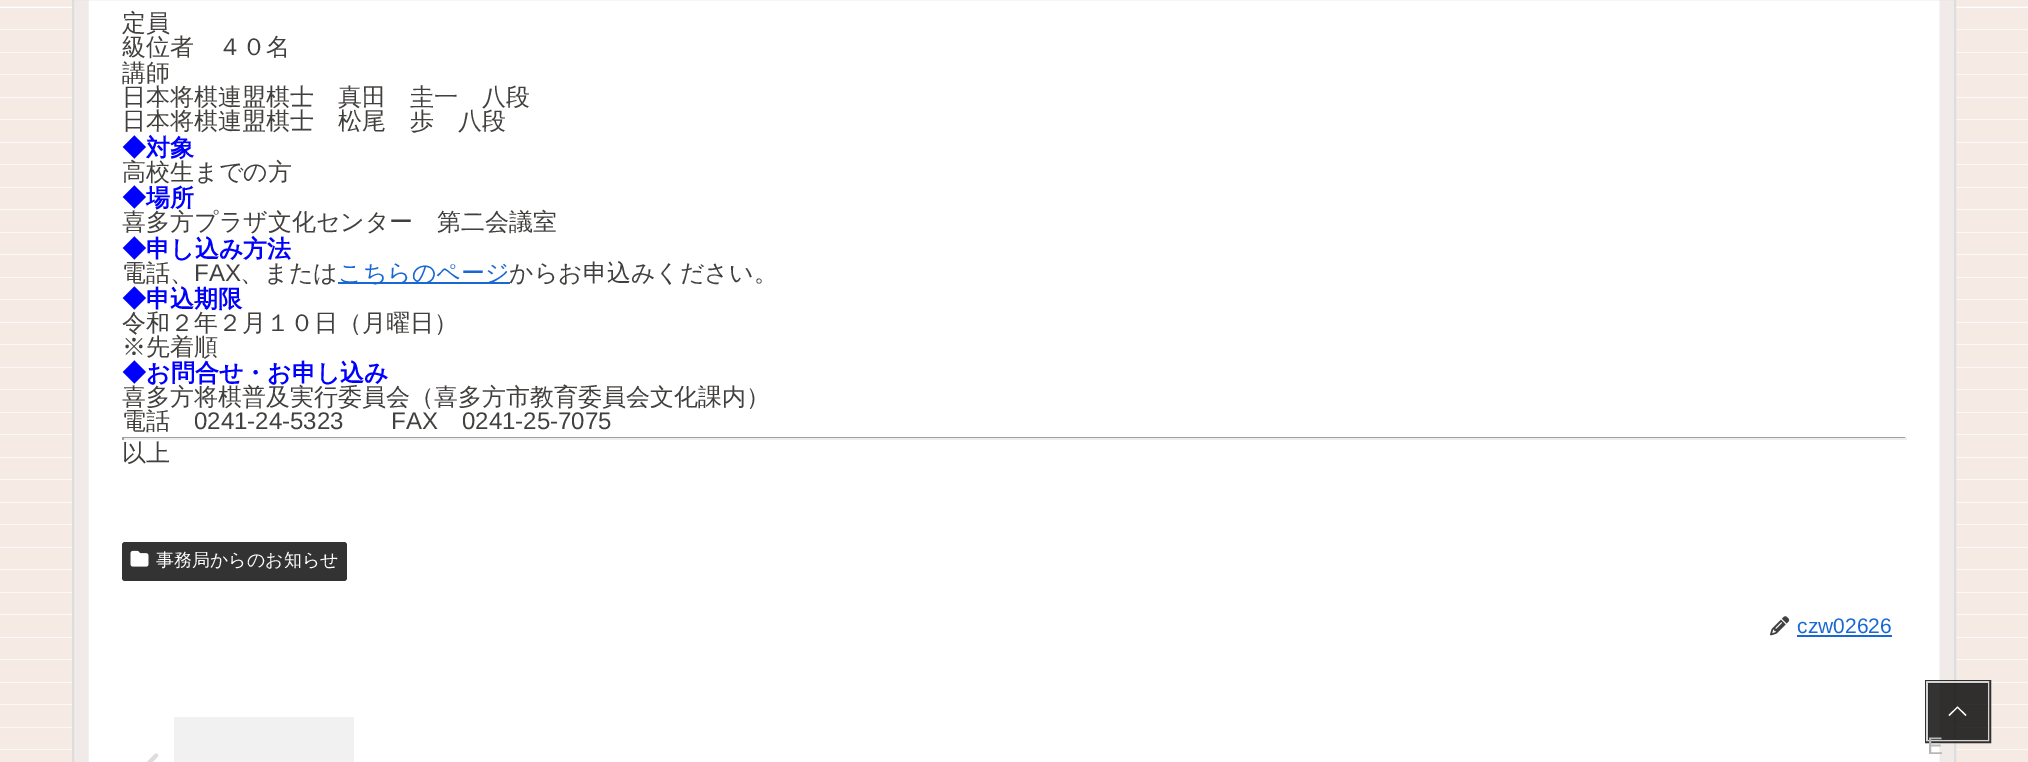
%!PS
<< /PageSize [2028 762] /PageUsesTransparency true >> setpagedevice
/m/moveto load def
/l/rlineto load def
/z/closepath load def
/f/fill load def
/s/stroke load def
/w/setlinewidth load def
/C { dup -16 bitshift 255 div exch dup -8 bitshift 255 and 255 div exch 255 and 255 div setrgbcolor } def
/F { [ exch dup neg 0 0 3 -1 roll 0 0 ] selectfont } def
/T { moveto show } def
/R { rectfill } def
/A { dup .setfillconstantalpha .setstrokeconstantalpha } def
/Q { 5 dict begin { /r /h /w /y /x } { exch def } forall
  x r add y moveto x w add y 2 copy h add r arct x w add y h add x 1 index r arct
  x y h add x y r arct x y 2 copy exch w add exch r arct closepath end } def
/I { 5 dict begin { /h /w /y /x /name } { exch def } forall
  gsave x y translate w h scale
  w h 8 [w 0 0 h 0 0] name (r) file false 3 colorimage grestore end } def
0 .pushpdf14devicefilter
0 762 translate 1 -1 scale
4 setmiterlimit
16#F5EAE4 C
0 0 2028 762 R
(1.rgb) 0 6 2028 744 I
16#FFFFFF C
88 0 1852 762 R
16#F0EBE8 C
15 w
81 -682.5 m 1866 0 l 0 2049 l -1866 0 l z s
16#DDDDDD C
2 w
73 -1 1882 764 rectstroke
/WenQuanYiZenHei-Medium 24 F
16#41403E C
(定員) 122 31 T
(級位者　４０名) 122 55 T
(講師) 122 81 T
(日本将棋連盟棋士　真田　圭一　八段) 122 105 T
(日本将棋連盟棋士　松尾　歩　八段) 122 129 T
/WenQuanYiZenHei-Bold 24 F
16#0000FF C
(◆対象) 122 156 T
/WenQuanYiZenHei-Medium 24 F
16#41403E C
(高校生までの方) 122 180 T
/WenQuanYiZenHei-Bold 24 F
16#0000FF C
(◆場所) 122 206 T
/WenQuanYiZenHei-Medium 24 F
16#41403E C
(喜多方プラザ文化センター　第二会議室) 122 230 T
/WenQuanYiZenHei-Bold 24 F
16#0000FF C
(◆申し込み方法) 122 257 T
/WenQuanYiZenHei-Medium 24 F
16#41403E C
(電話、) 122 281 T
/LiberationSans-Regular 24 F
(FAX) 194 281 T
/WenQuanYiZenHei-Medium 24 F
(、または) 240 281 T
16#1967D2 C
338 282 172 2 R
(こちらのページ) 338 281 T
16#41403E C
(からお申込みください。) 509 281 T
/WenQuanYiZenHei-Bold 24 F
16#0000FF C
(◆申込期限) 122 307 T
/WenQuanYiZenHei-Medium 24 F
16#41403E C
(令和２年２月１０日（月曜日）) 122 331 T
(※先着順) 122 355 T
/WenQuanYiZenHei-Bold 24 F
16#0000FF C
(◆お問合せ・お申し込み) 122 381 T
/WenQuanYiZenHei-Medium 24 F
16#41403E C
(喜多方将棋普及実行委員会（喜多方市教育委員会文化課内）) 122 405 T
(電話) 122 429 T
/LiberationSans-Regular 24 F
(0241-24-5323) 194 429 T
(FAX) 391 429 T
(0241-25-7075) 462 429 T
16#9F9F9F C
122 437 1785 1 R
16#EEEEEE C
1905 437 2 3 R
122 438 1785 2 R
16#9F9F9F C
122 437 2 3 R
/WenQuanYiZenHei-Medium 24 F
16#41403E C
(以上) 122 461 T
16#333333 C
122 542 225 39 3 Q f
(2.rgb) 130 550 19 17 I
/WenQuanYiZenHei-Medium 18 F
16#FFFFFF C
(事務局からのお知らせ) 156 566 T
(3.rgb) 1770 616 20 20 I
/LiberationSans-Regular 21 F
16#1967D2 C
(czw02626) 1797 633 T
1797 635 95 2 R
(4.rgb) 147 753 12 9 I
16#F1F1F1 C
174 717 180 45 R
0.8 A
16#000000 C
3 w
1926.5 681.5 63 60 rectstroke
16#FFFFFF C
2 w
1927 682 61 58 rectstroke
16#000000 C
1928 683 60 57 R
1 A
16#FFFFFF C
1966.5 715 m -1 1 l -8 -8 l -8 8 l -1 -1 l 9 -8.5 l z f
/LiberationSans-Regular 24 F
16#B7B7B6 C
(E) 1927 754 T
.poppdf14devicefilter showpage
